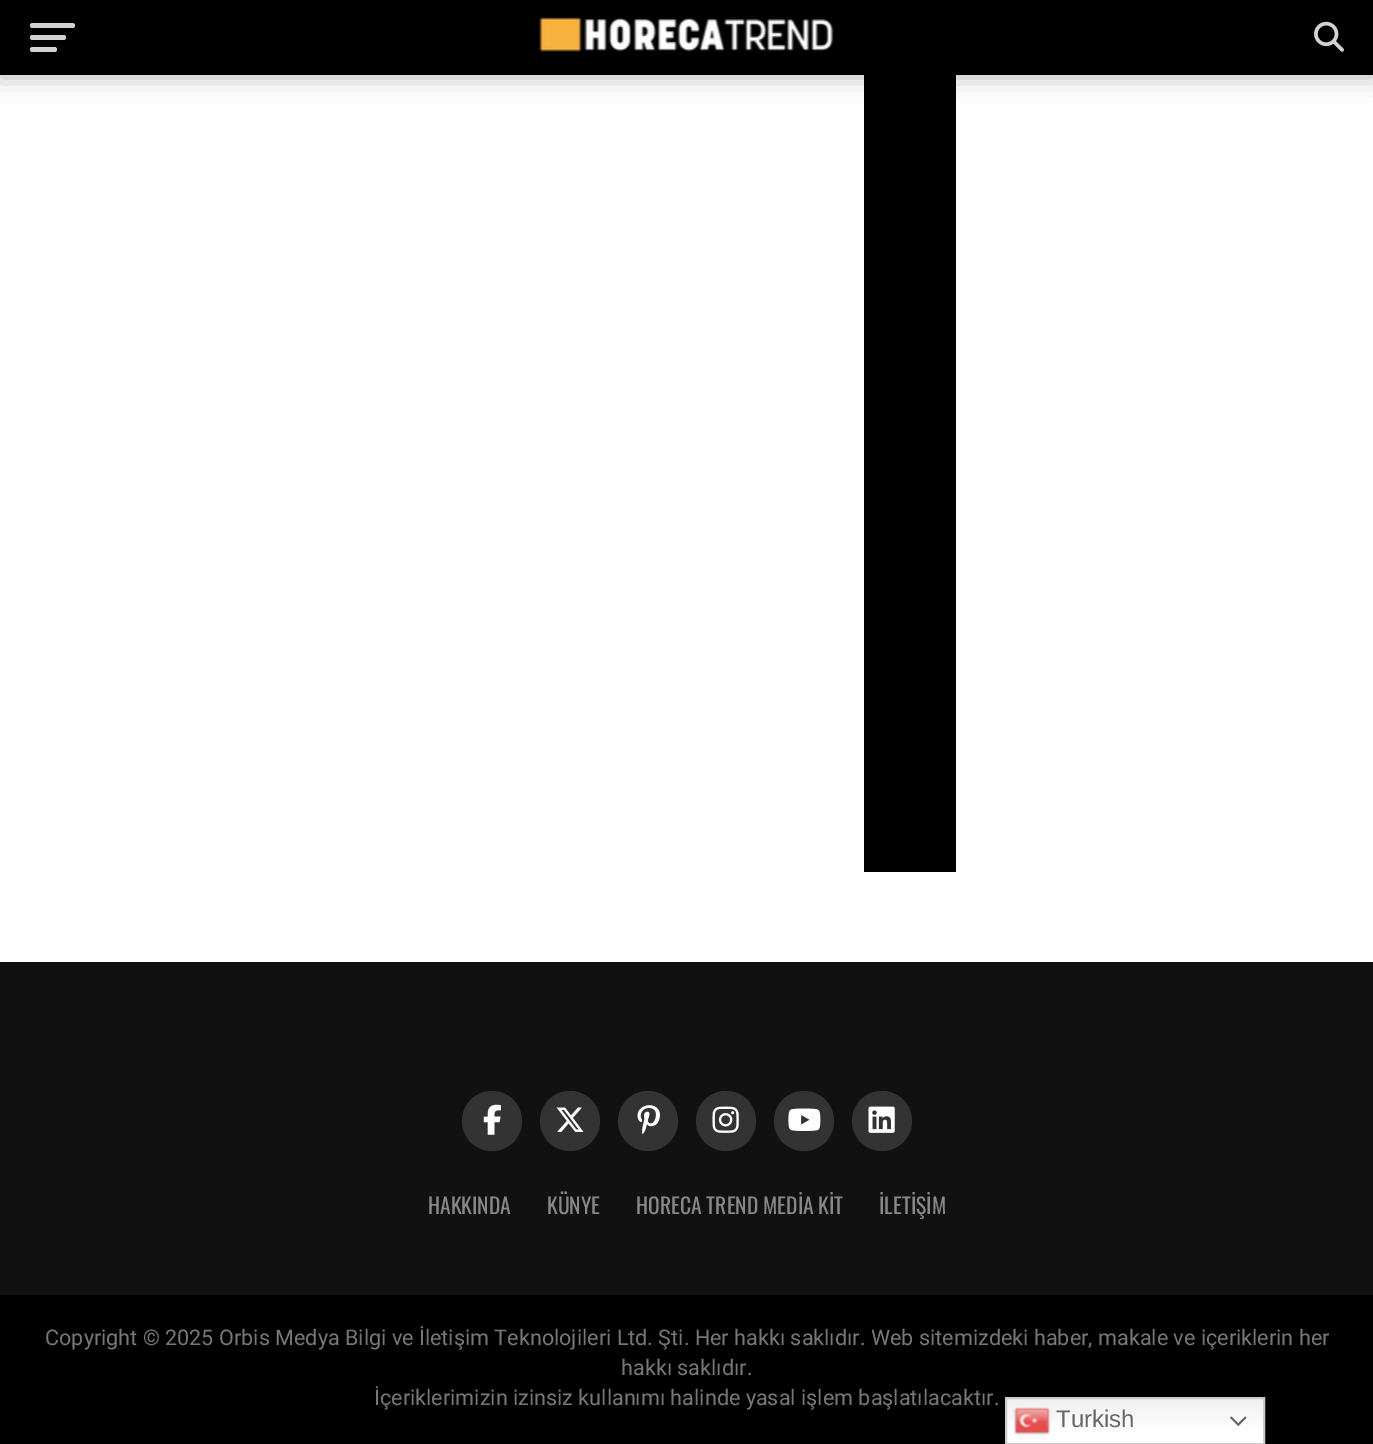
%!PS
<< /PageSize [1373 1444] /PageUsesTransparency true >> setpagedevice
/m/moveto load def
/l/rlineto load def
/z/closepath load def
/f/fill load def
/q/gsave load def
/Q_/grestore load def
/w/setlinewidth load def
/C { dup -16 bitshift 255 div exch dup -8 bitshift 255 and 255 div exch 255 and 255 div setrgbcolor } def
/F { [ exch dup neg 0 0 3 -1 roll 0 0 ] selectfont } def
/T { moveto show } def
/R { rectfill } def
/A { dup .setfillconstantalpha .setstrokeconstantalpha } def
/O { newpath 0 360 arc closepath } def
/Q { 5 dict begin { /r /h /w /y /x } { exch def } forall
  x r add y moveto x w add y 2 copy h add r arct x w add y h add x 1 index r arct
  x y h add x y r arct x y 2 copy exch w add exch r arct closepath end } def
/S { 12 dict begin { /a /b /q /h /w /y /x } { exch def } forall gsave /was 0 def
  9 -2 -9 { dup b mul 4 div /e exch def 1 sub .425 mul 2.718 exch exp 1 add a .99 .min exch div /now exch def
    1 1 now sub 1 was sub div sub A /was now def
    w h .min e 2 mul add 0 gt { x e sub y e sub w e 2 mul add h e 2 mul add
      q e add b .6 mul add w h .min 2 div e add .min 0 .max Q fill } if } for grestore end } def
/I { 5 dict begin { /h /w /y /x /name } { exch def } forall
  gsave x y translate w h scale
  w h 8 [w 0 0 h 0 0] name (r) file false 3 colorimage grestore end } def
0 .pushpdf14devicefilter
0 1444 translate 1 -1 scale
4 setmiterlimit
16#FFFFFF C
0 0 1373 1444 R
16#000000 C
864 75 92 797 R
0 2 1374 75 0 12 .3 S
0 0 1373 75 R
16#D3D3D3 C
30 23 45 5 2.5 Q f
30 35 36 5 2.5 Q f
30 47 27 5 2.5 Q f
(1.rgb) 539 17 295 35 I
(2.rgb) 1314 21 30 31 I
16#111111 C
0 962 1373 333 R
16#333333 C
492 1121 30 O f
(3.rgb) 483 1104 18 31 I
570 1121 30 O f
(4.rgb) 556 1107 28 25 I
648 1121 30 O f
(5.rgb) 637 1105 23 30 I
726 1121 30 O f
(6.rgb) 712 1106 27 27 I
804 1121 30 O f
(7.rgb) 788 1108 33 23 I
882 1121 30 O f
(8.rgb) 868 1106 27 27 I
/Oswald-Regular 21.6 F
16#888888 C
(HAKKINDA) 428 1214 T
(KÜNYE) 547 1214 T
(HORECA TREND MEDİA KİT) 636 1214 T
(İLETİŞİM) 879 1214 T
16#000000 C
0 1295 1373 149 R
/Roboto-Regular 21.6 F
16#777777 C
(Copyright © 2025 Orbis Medya Bilgi ve İletişim Teknolojileri Ltd. Şti. Her hakkı saklıdır. Web sitemizdeki haber, makale ve içeriklerin her) 45 1345 T
(hakkı saklıdır.) 621 1375 T
(İçeriklerimizin izinsiz kullanımı halinde yasal işlem başlatılacaktır.) 374 1405 T
q 1007 1399 m 256 0 l 0 44 l -256 0 l z clip newpath
<< /ShadingType 2 /ColorSpace /DeviceRGB /Coords [1135 1397 1135 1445] /Extend [true true] /Function << /FunctionType 3 /Domain [0 1] /Functions [<< /FunctionType 2 /Domain [0 1] /C0 [.937 .937 .937] /C1 [1 1 1] /N 1 >> << /FunctionType 2 /Domain [0 1] /C0 [1 1 1] /C1 [1 1 1] /N 1 >>] /Bounds [.7] /Encode [0 1 0 1] >> >> shfill Q_
16#CCCCCC C
2 w
1006 1398 258 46 rectstroke
(9.rgb) 1013 1407 38 28 I
/LiberationSans-Regular 24 F
16#666666 C
(Turkish) 1056 1427 T
(10.rgb) 1230 1416 17 10 I
.poppdf14devicefilter showpage
